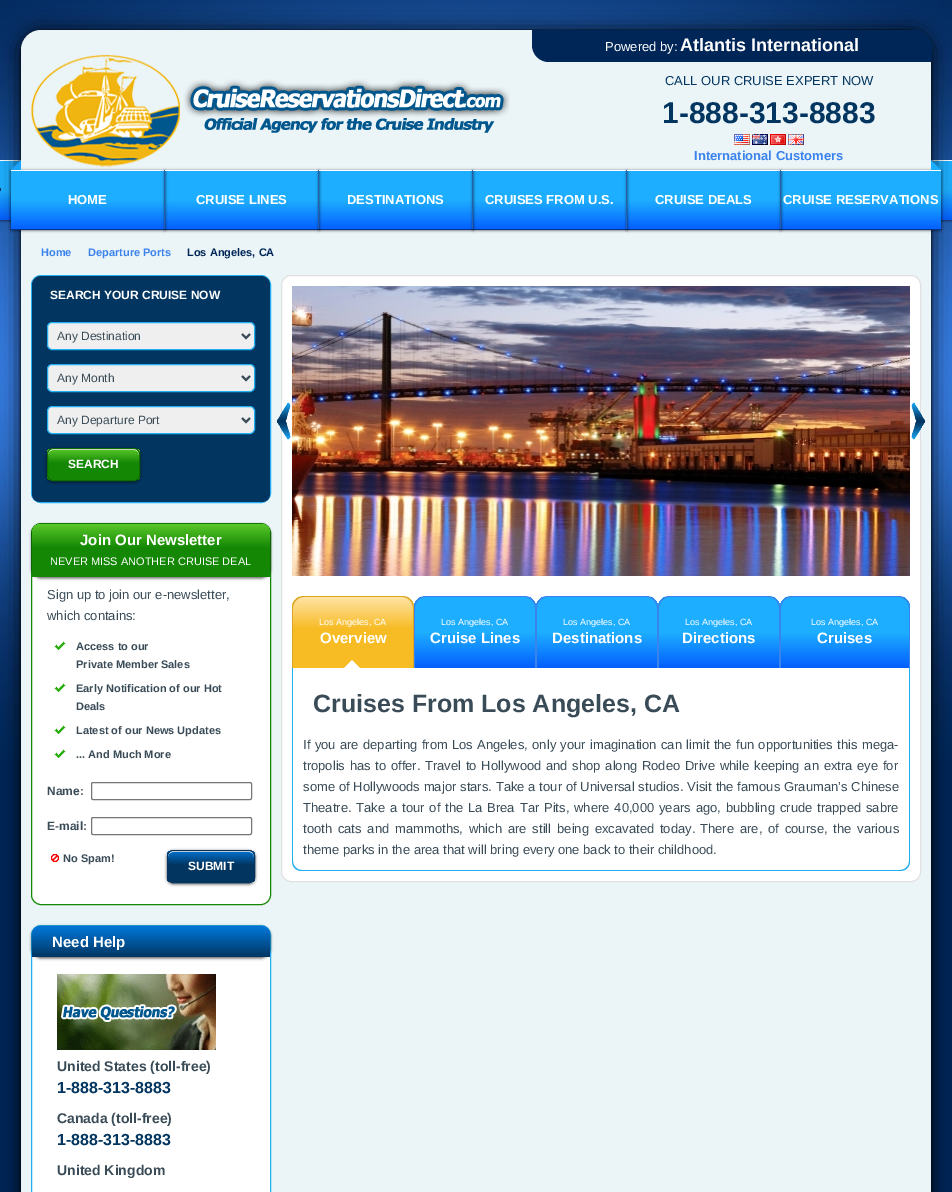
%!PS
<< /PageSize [952 1192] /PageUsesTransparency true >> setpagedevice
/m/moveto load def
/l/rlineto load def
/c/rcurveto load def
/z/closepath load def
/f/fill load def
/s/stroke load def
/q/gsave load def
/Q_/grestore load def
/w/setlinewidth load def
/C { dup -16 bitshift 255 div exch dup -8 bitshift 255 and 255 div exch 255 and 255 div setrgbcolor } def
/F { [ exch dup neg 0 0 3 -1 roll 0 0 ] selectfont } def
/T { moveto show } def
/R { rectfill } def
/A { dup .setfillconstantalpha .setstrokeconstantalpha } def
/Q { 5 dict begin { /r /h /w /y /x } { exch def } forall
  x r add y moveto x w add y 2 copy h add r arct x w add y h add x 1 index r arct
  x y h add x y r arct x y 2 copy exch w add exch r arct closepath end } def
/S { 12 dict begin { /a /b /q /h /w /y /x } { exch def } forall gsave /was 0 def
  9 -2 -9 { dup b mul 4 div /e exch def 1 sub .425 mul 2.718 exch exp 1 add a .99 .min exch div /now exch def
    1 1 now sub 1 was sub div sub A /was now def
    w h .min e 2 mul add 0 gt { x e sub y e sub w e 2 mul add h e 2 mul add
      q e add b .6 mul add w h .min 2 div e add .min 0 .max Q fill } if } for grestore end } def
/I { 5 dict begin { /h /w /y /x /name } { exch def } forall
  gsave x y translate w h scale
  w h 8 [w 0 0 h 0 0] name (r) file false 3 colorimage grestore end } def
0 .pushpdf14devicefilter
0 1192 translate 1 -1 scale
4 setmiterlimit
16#002658 C
0 0 952 1192 R
(1.rgb) 0 0 952 759 I
(4.rgb) 0 160 21 63 I
(5.rgb) 932 160 20 63 I
16#000000 C
21 32 910 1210 20 10 1 S
21 30 910 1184 20 .5 1 S
16#EBF4F7 C
21 30 910 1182 20 Q f
16#002658 C
532 30 m 383 0 l 9.5 0 17 7.5 17 17 c 0 15 l -383 0 l -9.5 0 -17 -7.5 -17 -17 c z f
/LiberationSans-Regular 13 F
16#FFFFFF C
(Powered by:) 605 51 T
/LiberationSans-Bold 18 F
(Atlantis International) 680 51 T
(2.rgb) 31 55 479 112 I
/LiberationSans-Regular 13 F
16#023560 C
(CALL OUR CRUISE EXPERT NOW) 665 85 T
/LiberationSans-Bold 30 F
(1-888-313-8883) 662 123 T
(3.rgb) 734 134 70 11 I
/LiberationSans-Bold 13 F
16#3A83EC C
(International Customers) 694 160 T
q 11 171 m 930 0 l 0 59 l -930 0 l z clip newpath
<< /ShadingType 2 /ColorSpace /DeviceRGB /Coords [11 170 11 230] /Extend [true true] /Function << /FunctionType 3 /Domain [0 1] /Functions [<< /FunctionType 2 /Domain [0 1] /C0 [.114 .682 1] /C1 [.114 .682 1] /N 1 >> << /FunctionType 2 /Domain [0 1] /C0 [.114 .682 1] /C1 [.012 .369 1] /N 1 >>] /Bounds [.5] /Encode [0 1 0 1] >> >> shfill Q_
q
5 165 m 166 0 l 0 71 l -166 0 l z 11 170 m 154 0 l 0 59 l -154 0 l z eoclip newpath
16#000000 C
11 171 154 59 0 1.5 .7 S
Q_
16#1AA4FF C
21 160 m 0 10 l -10 0 l z f
16#FFFFFF C
11 170 153 1 R
16#3A83EC C
164 170 1 59 R
q
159 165 m 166 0 l 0 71 l -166 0 l z 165 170 m 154 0 l 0 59 l -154 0 l z eoclip newpath
16#000000 C
165 171 154 59 0 1.5 .7 S
Q_
16#FFFFFF C
165 170 153 1 R
16#3A83EC C
318 170 1 59 R
q
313 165 m 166 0 l 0 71 l -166 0 l z 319 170 m 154 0 l 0 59 l -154 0 l z eoclip newpath
16#000000 C
319 171 154 59 0 1.5 .7 S
Q_
16#FFFFFF C
319 170 153 1 R
16#3A83EC C
472 170 1 59 R
q
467 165 m 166 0 l 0 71 l -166 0 l z 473 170 m 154 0 l 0 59 l -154 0 l z eoclip newpath
16#000000 C
473 171 154 59 0 1.5 .7 S
Q_
16#FFFFFF C
473 170 153 1 R
16#3A83EC C
626 170 1 59 R
q
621 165 m 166 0 l 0 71 l -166 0 l z 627 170 m 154 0 l 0 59 l -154 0 l z eoclip newpath
16#000000 C
627 171 154 59 0 1.5 .7 S
Q_
16#FFFFFF C
627 170 153 1 R
16#3A83EC C
780 170 1 59 R
q
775 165 m 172 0 l 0 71 l -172 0 l z 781 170 m 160 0 l 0 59 l -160 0 l z eoclip newpath
16#000000 C
781 171 160 59 0 1.5 .7 S
Q_
16#1DAEFF C
931 170 m 0 -10 l 10 10 l z f
16#FFFFFF C
(HOME) 68 204 T
(CRUISE LINES) 196 204 T
(DESTINATIONS) 347 204 T
(CRUISES FROM U.S.) 485 204 T
(CRUISE DEALS) 655 204 T
781 170 160 1 R
(CRUISE RESERVATIONS) 783 204 T
/LiberationSans-Bold 11 F
16#3A83EC C
(Home) 41 256 T
(Departure Ports) 88 256 T
16#002658 C
(Los Angeles, CA) 187 256 T
16#21AFF1 C
31.5 275.5 239 227 9.5 Q s
16#023560 C
41 276 m 220 0 l 5 0 9 4 9 9 c 0 30 l -238 0 l 0 -30 l 0 -5 4 -9 9 -9 c z f
/LiberationSans-Bold 12 F
16#FFFFFF C
(SEARCH YOUR CRUISE NOW) 50 299 T
16#023560 C
32 315 m 238 0 l 0 179 l 0 4.5 -3.5 8 -8 8 c -222 0 l -4.5 0 -8 -3.5 -8 -8 c z f
16#EFEFEF C
47.5 322.5 207 27 4.5 Q q f Q_
16#21AFF1 C
s
16#394B57 C
2 w
242 334 m 4 4 l 4 -4 l s
/LiberationSans-Regular 12 F
(Any Destination) 57 340 T
16#EFEFEF C
47.5 364.5 207 27 4.5 Q q f Q_
16#21AFF1 C
1 w
s
16#394B57 C
2 w
242 376 m 4 4 l 4 -4 l s
(Any Month) 57 382 T
16#EFEFEF C
47.5 406.5 207 27 4.5 Q q f Q_
16#21AFF1 C
1 w
s
16#394B57 C
2 w
242 418 m 4 4 l 4 -4 l s
(Any Departure Port) 57 424 T
16#000000 C
47 449 93 33 6 1.5 .7 S
q
47 448 93 33 6 Q clip newpath
q 47 449 m 93 0 l 0 31 l -93 0 l z clip newpath
<< /ShadingType 2 /ColorSpace /DeviceRGB /Coords [48 480 48 449] /Extend [true true] /Function << /FunctionType 3 /Domain [0 1] /Functions [<< /FunctionType 2 /Domain [0 1] /C0 [.078 .533 .02] /C1 [.078 .533 .02] /N 1 >> << /FunctionType 2 /Domain [0 1] /C0 [.078 .533 .02] /C1 [.349 .78 .161] /N 1 >>] /Bounds [.55] /Encode [0 1 0 1] >> >> shfill Q_
Q_
16#FFFFFF C
53 450 m 81 0 l 3 0 5 2 5 5 c 0 -9 -13 -6 -19 -6 c -54 0 l -5 0 -18 -3 -18 6 c 0 -3 2 -5 5 -5 c z f
16#106B04 C
1 w
47.5 448.5 92 32 5.5 Q s
/LiberationSans-Bold 12 F
16#FFFFFF C
(SEARCH) 68 468 T
31.5 523.5 239 381 9.5 Q q f Q_
16#148805 C
s
16#000000 C
32 525 238 53 9 1.5 .7 S
q 41 524 m 220 0 l 5 0 9 4 9 9 c 0 44 l -238 0 l 0 -44 l 0 -5 4 -9 9 -9 c z clip newpath
<< /ShadingType 2 /ColorSpace /DeviceRGB /Coords [32 577 32 524] /Extend [true true] /Function << /FunctionType 3 /Domain [0 1] /Functions [<< /FunctionType 2 /Domain [0 1] /C0 [.078 .533 .02] /C1 [.078 .533 .02] /N 1 >> << /FunctionType 2 /Domain [0 1] /C0 [.078 .533 .02] /C1 [.349 .78 .161] /N 1 >>] /Bounds [.55] /Encode [0 1 0 1] >> >> shfill Q_
/LiberationSans-Bold 15 F
16#FFFFFF C
(Join Our Newsletter) 80 545 T
/LiberationSans-Regular 11 F
(NEVER MISS ANOTHER CRUISE DEAL) 50 565 T
/LiberationSans-Regular 13 F
16#394B57 C
(Sign up to join our e-newsletter,) 47 599 T
(which contains:) 47 620 T
(6.rgb) 54 641 12 9 I
/LiberationSans-Bold 11 F
(Access to our) 76 650 T
(Private Member Sales) 76 668 T
(6.rgb) 54 683 12 9 I
(Early Notification of our Hot) 76 692 T
(Deals) 76 710 T
(6.rgb) 54 725 12 9 I
(Latest of our News Updates) 76 734 T
(6.rgb) 54 749 12 9 I
(... And Much More) 76 758 T
/LiberationSans-Bold 12 F
(Name:) 47 795 T
16#767676 C
91.5 782.5 160 17 1.5 Q s
16#394B57 C
(E-mail:) 47 830 T
16#767676 C
91.5 817.5 160 17 1.5 Q s
(7.rgb) 51 854 8 8 I
/LiberationSans-Bold 11 F
16#394B57 C
(No Spam!) 63 862 T
16#000000 C
167 851 88 33 6 1.5 .7 S
q
167 850 88 33 6 Q clip newpath
q 167 851 m 88 0 l 0 31 l -88 0 l z clip newpath
<< /ShadingType 2 /ColorSpace /DeviceRGB /Coords [168 882 168 851] /Extend [true true] /Function << /FunctionType 3 /Domain [0 1] /Functions [<< /FunctionType 2 /Domain [0 1] /C0 [.008 .208 .376] /C1 [.008 .208 .376] /N 1 >> << /FunctionType 2 /Domain [0 1] /C0 [.008 .208 .376] /C1 [0 .447 .812] /N 1 >>] /Bounds [.55] /Encode [0 1 0 1] >> >> shfill Q_
Q_
16#FFFFFF C
173 852 m 76 0 l 3 0 5 2 5 5 c 0 -9 -12 -6 -18 -6 c -50 0 l -6 0 -18 -3 -18 6 c 0 -3 2 -5 5 -5 c z f
16#023560 C
167.5 850.5 87 32 5.5 Q s
/LiberationSans-Bold 12 F
16#FFFFFF C
(SUBMIT) 188 870 T
31.5 925.5 239 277 9.5 Q q f Q_
16#21AFF1 C
s
16#000000 C
32 927 238 31 9 1.5 .7 S
q 41 926 m 220 0 l 5 0 9 4 9 9 c 0 22 l -238 0 l 0 -22 l 0 -5 4 -9 9 -9 c z clip newpath
<< /ShadingType 2 /ColorSpace /DeviceRGB /Coords [32 926 32 957] /Extend [true true] /Function << /FunctionType 3 /Domain [0 1] /Functions [<< /FunctionType 2 /Domain [0 1] /C0 [0 .447 .812] /C1 [0 .447 .812] /N 1 >> << /FunctionType 2 /Domain [0 1] /C0 [0 .447 .812] /C1 [.008 .208 .376] /N 1 >>] /Bounds [.1] /Encode [0 1 0 1] >> >> shfill Q_
/LiberationSans-Bold 15 F
16#FFFFFF C
(Need Help) 52 947 T
(8.rgb) 57 974 159 76 I
/LiberationSans-Bold 14 F
16#394B57 C
(United States \(toll-free\)) 57 1071 T
/LiberationSans-Bold 16 F
16#023560 C
(1-888-313-8883) 57 1093 T
/LiberationSans-Bold 14 F
16#394B57 C
(Canada \(toll-free\)) 57 1123 T
/LiberationSans-Bold 16 F
16#023560 C
(1-888-313-8883) 57 1145 T
/LiberationSans-Bold 14 F
16#394B57 C
(United Kingdom) 57 1175 T
16#FFFFFF C
281.5 275.5 639 606 9.5 Q q f Q_
16#E0E0E0 C
s
(9.rgb) 277 402 14 38 I
(10.rgb) 292 286 618 290 I
(11.rgb) 911 402 14 38 I
q
304 596 m 98 0 l 6.5 0 12 5.5 12 12 c 0 60 l -122 0 l 0 -60 l 0 -6.5 5.5 -12 12 -12 c z clip newpath
q 292 597 m 122 0 l 0 71 l -122 0 l z clip newpath
<< /ShadingType 2 /ColorSpace /DeviceRGB /Coords [293 668 293 597] /Extend [true true] /Function << /FunctionType 3 /Domain [0 1] /Functions [<< /FunctionType 2 /Domain [0 1] /C0 [.969 .733 .141] /C1 [.969 .733 .141] /N 1 >> << /FunctionType 2 /Domain [0 1] /C0 [.969 .733 .141] /C1 [1 .894 .651] /N 1 >>] /Bounds [.55] /Encode [0 1 0 1] >> >> shfill Q_
Q_
16#DBA621 C
304 596 m 98 0 l 7 0 12 5 12 12 c 0 60 l -122 0 l 0 -60 l 0 -7 5 -12 12 -12 c z 304 597 m 98 0 l 6 0 11 5 11 11 c 0 60 l -120 0 l 0 -60 l 0 -6 5 -11 11 -11 c z eofill
/LiberationSans-Regular 9 F
16#FFFFFF C
(Los Angeles, CA) 319 625 T
/LiberationSans-Bold 15 F
(Overview) 320 643 T
360 668 m -16 0 l 8 -8 l z f
q
426 596 m 98 0 l 6.5 0 12 5.5 12 12 c 0 60 l -122 0 l 0 -60 l 0 -6.5 5.5 -12 12 -12 c z clip newpath
q 414 597 m 122 0 l 0 71 l -122 0 l z clip newpath
<< /ShadingType 2 /ColorSpace /DeviceRGB /Coords [415 597 415 668] /Extend [true true] /Function << /FunctionType 3 /Domain [0 1] /Functions [<< /FunctionType 2 /Domain [0 1] /C0 [.114 .682 1] /C1 [.114 .682 1] /N 1 >> << /FunctionType 2 /Domain [0 1] /C0 [.114 .682 1] /C1 [.012 .369 1] /N 1 >>] /Bounds [.5] /Encode [0 1 0 1] >> >> shfill Q_
Q_
16#3A83EC C
426 596 m 98 0 l 7 0 12 5 12 12 c 0 60 l -122 0 l 0 -60 l 0 -7 5 -12 12 -12 c z 426 597 m 98 0 l 6 0 11 5 11 11 c 0 60 l -120 0 l 0 -60 l 0 -6 5 -11 11 -11 c z eofill
/LiberationSans-Regular 9 F
16#FFFFFF C
(Los Angeles, CA) 441 625 T
/LiberationSans-Bold 15 F
(Cruise Lines) 430 643 T
q
548 596 m 98 0 l 6.5 0 12 5.5 12 12 c 0 60 l -122 0 l 0 -60 l 0 -6.5 5.5 -12 12 -12 c z clip newpath
q 536 597 m 122 0 l 0 71 l -122 0 l z clip newpath
<< /ShadingType 2 /ColorSpace /DeviceRGB /Coords [537 597 537 668] /Extend [true true] /Function << /FunctionType 3 /Domain [0 1] /Functions [<< /FunctionType 2 /Domain [0 1] /C0 [.114 .682 1] /C1 [.114 .682 1] /N 1 >> << /FunctionType 2 /Domain [0 1] /C0 [.114 .682 1] /C1 [.012 .369 1] /N 1 >>] /Bounds [.5] /Encode [0 1 0 1] >> >> shfill Q_
Q_
16#3A83EC C
548 596 m 98 0 l 7 0 12 5 12 12 c 0 60 l -122 0 l 0 -60 l 0 -7 5 -12 12 -12 c z 548 597 m 98 0 l 6 0 11 5 11 11 c 0 60 l -120 0 l 0 -60 l 0 -6 5 -11 11 -11 c z eofill
/LiberationSans-Regular 9 F
16#FFFFFF C
(Los Angeles, CA) 563 625 T
/LiberationSans-Bold 15 F
(Destinations) 552 643 T
q
670 596 m 98 0 l 6.5 0 12 5.5 12 12 c 0 60 l -122 0 l 0 -60 l 0 -6.5 5.5 -12 12 -12 c z clip newpath
q 658 597 m 122 0 l 0 71 l -122 0 l z clip newpath
<< /ShadingType 2 /ColorSpace /DeviceRGB /Coords [659 597 659 668] /Extend [true true] /Function << /FunctionType 3 /Domain [0 1] /Functions [<< /FunctionType 2 /Domain [0 1] /C0 [.114 .682 1] /C1 [.114 .682 1] /N 1 >> << /FunctionType 2 /Domain [0 1] /C0 [.114 .682 1] /C1 [.012 .369 1] /N 1 >>] /Bounds [.5] /Encode [0 1 0 1] >> >> shfill Q_
Q_
16#3A83EC C
670 596 m 98 0 l 7 0 12 5 12 12 c 0 60 l -122 0 l 0 -60 l 0 -7 5 -12 12 -12 c z 670 597 m 98 0 l 6 0 11 5 11 11 c 0 60 l -120 0 l 0 -60 l 0 -6 5 -11 11 -11 c z eofill
/LiberationSans-Regular 9 F
16#FFFFFF C
(Los Angeles, CA) 685 625 T
/LiberationSans-Bold 15 F
(Directions) 682 643 T
q
792 596 m 106 0 l 6.5 0 12 5.5 12 12 c 0 60 l -130 0 l 0 -60 l 0 -6.5 5.5 -12 12 -12 c z clip newpath
q 780 597 m 130 0 l 0 71 l -130 0 l z clip newpath
<< /ShadingType 2 /ColorSpace /DeviceRGB /Coords [781 597 781 668] /Extend [true true] /Function << /FunctionType 3 /Domain [0 1] /Functions [<< /FunctionType 2 /Domain [0 1] /C0 [.114 .682 1] /C1 [.114 .682 1] /N 1 >> << /FunctionType 2 /Domain [0 1] /C0 [.114 .682 1] /C1 [.012 .369 1] /N 1 >>] /Bounds [.5] /Encode [0 1 0 1] >> >> shfill Q_
Q_
16#3A83EC C
792 596 m 106 0 l 7 0 12 5 12 12 c 0 60 l -130 0 l 0 -60 l 0 -7 5 -12 12 -12 c z 792 597 m 106 0 l 6 0 11 5 11 11 c 0 60 l -128 0 l 0 -60 l 0 -6 5 -11 11 -11 c z eofill
/LiberationSans-Regular 9 F
16#FFFFFF C
(Los Angeles, CA) 811 625 T
/LiberationSans-Bold 15 F
(Cruises) 817 643 T
16#21AFF1 C
292 668 m 618 0 l 0 193 l 0 6 -4 10 -10 10 c -598 0 l -6 0 -10 -4 -10 -10 c z 293 668 m 616 0 l 0 193 l 0 5 -4 9 -9 9 c -598 0 l -5 0 -9 -4 -9 -9 c z eofill
/LiberationSans-Bold 25 F
16#394B57 C
(Cruises From Los Angeles, CA) 313 712 T
/LiberationSans-Regular 13 F
303 749 m .75 0 32 (If you are departing from Los Angeles, only your imagination can limit the fun opportunities this mega-) widthshow
303 770 m 1.1 0 32 (tropolis has to offer.) widthshow
425 770 m 1.1 0 32 (Travel to Hollywood and shop along Rodeo Drive while keeping an extra eye for) widthshow
303 791 m .25 0 32 (some of Hollywoods major stars. Take a tour of Universal studios. Visit the famous Grauman’s Chinese) widthshow
303 812 m 1.25 0 32 (Theatre. Take a tour of the La Brea Tar Pits, where 40,000 years ago, bubbling crude trapped sabre) widthshow
303 833 m 2.25 0 32 (tooth cats and mammoths, which are still being excavated today.) widthshow
700 833 m 2.25 0 32 (There are, of course, the various) widthshow
(theme parks in the area that will bring every one back to their childhood.) 303 854 T
.poppdf14devicefilter showpage
